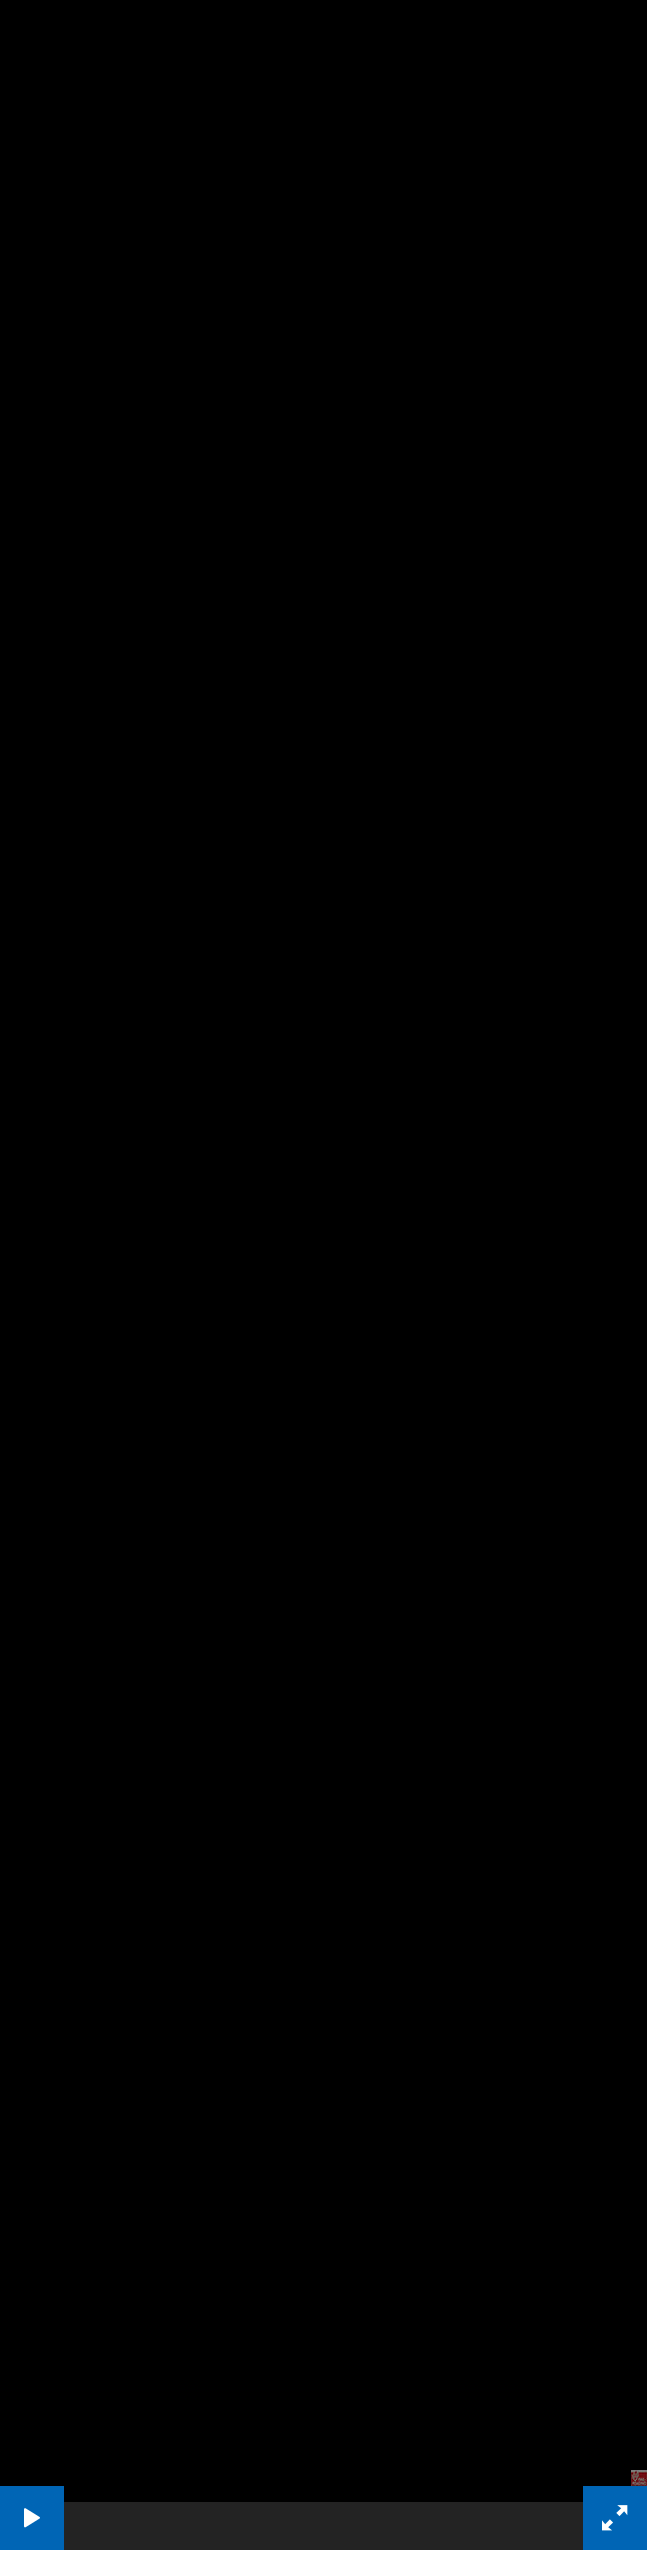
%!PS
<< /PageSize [647 2550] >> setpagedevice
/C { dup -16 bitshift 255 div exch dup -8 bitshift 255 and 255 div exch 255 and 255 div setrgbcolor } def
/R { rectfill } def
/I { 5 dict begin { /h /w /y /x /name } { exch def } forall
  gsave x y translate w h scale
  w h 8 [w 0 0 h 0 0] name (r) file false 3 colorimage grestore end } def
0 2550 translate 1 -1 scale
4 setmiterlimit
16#000000 C
0 0 647 2550 R
(1.rgb) 631 2470 16 16 I
16#0065B5 C
0 2486 64 64 R
(2.rgb) 24 2508 16 20 I
583 2486 64 64 R
(3.rgb) 602 2505 26 26 I
16#232323 C
64 2502 519 48 R
showpage
